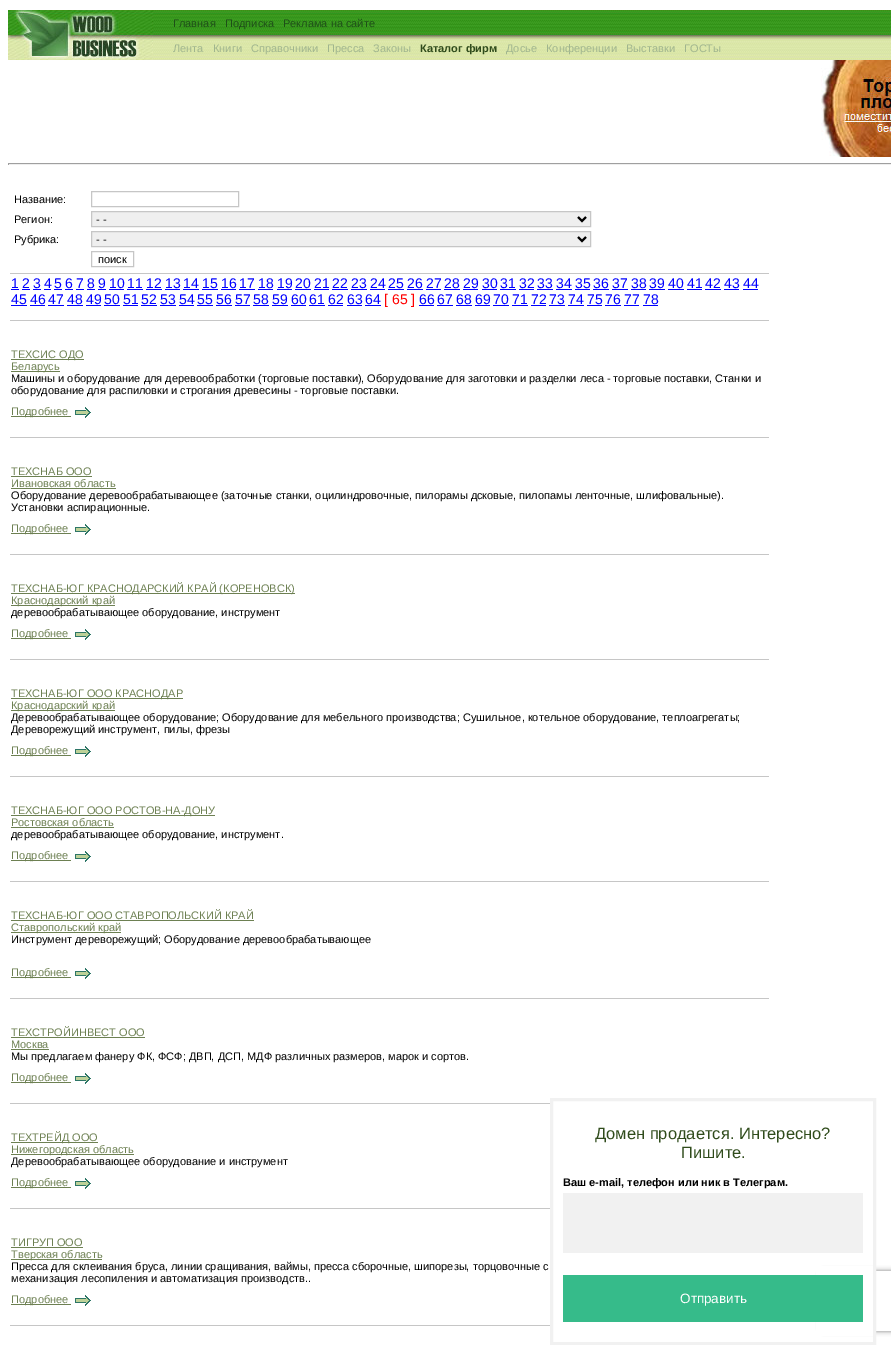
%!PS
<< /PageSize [891 1345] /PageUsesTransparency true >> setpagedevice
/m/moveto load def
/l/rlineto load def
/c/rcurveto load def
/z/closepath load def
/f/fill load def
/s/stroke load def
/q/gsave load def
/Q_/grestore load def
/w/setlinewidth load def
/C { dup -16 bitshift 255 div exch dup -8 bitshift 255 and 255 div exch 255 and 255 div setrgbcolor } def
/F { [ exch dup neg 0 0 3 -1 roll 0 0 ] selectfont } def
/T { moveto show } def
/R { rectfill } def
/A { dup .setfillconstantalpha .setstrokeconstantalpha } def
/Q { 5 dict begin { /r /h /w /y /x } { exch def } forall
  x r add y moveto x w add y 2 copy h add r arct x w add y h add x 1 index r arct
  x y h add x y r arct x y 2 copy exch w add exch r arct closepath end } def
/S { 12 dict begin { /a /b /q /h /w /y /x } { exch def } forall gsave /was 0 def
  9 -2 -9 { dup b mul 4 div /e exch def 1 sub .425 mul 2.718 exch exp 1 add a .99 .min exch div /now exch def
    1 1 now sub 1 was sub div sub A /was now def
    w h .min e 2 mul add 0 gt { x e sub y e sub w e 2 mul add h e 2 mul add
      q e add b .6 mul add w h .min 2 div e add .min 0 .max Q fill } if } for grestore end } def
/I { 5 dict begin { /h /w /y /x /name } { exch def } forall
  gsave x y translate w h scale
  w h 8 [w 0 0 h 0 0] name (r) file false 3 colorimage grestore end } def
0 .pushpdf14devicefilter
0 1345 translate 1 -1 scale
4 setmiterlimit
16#FFFFFF C
0 0 891 1345 R
(1.rgb) 8 10 145 50 I
(2.rgb) 153 10 738 26 I
/LiberationSans-Regular 11 F
16#1E4F18 C
(Главная) 173 27 T
(Подписка) 225 27 T
(Реклама на сайте) 283 27 T
(3.rgb) 153 36 738 24 I
16#A0B58E C
(Лента) 173 52 T
(Книги) 213 52 T
(Справочники) 251 52 T
(Пресса) 327 52 T
(Законы) 373 52 T
/LiberationSans-Bold 11 F
16#304C1C C
(Каталог фирм) 420 52 T
/LiberationSans-Regular 11 F
16#A0B58E C
(Досье) 506 52 T
(Конференции) 546 52 T
(Выставки) 626 52 T
(ГОСТы) 684 52 T
(4.rgb) 821 60 70 97 I
16#9F9F9F C
8 163 883 1 R
16#EEEEEE C
8 164 883 1 R
16#9F9F9F C
8 163 1 2 R
16#000000 C
(Название:) 14 203 T
16#C6C6C6 C
91.5 191.5 147 15 rectstroke
16#000000 C
(Регион:) 14 223 T
16#EFEFEF C
91.5 211.5 m 499 0 l 0 15 l -499 0 l z q f Q_
16#C6C6C6 C
s
16#000000 C
2 w
578 217 m 4 4 l 4 -4 l s
(- -) 96 223 T
(Рубрика:) 14 243 T
16#EFEFEF C
91.5 231.5 m 499 0 l 0 15 l -499 0 l z q f Q_
16#C6C6C6 C
1 w
s
16#000000 C
2 w
578 237 m 4 4 l 4 -4 l s
(- -) 96 243 T
16#C6C6C6 C
1 w
91.5 251.5 42 15 rectstroke
16#000000 C
(поиск) 98 263 T
16#C6C6C6 C
10 273 759 1 R
10 320 759 1 R
/LiberationSans-Regular 14 F
16#0000FF C
(1) 11 288 T
11 289 8 1 R
(2) 22 288 T
22 289 8 1 R
(3) 33 288 T
33 289 8 1 R
(4) 44 288 T
44 289 7 1 R
(5) 54 288 T
54 289 8 1 R
(6) 65 288 T
65 289 8 1 R
(7) 76 288 T
76 289 8 1 R
(8) 87 288 T
87 289 8 1 R
(9) 98 288 T
98 289 8 1 R
(10) 109 288 T
109 289 15 1 R
(11) 127 288 T
127 289 16 1 R
(12) 146 288 T
146 289 16 1 R
(13) 165 288 T
165 289 15 1 R
(14) 183 288 T
183 289 16 1 R
(15) 202 288 T
202 289 16 1 R
(16) 221 288 T
221 289 15 1 R
(17) 239 288 T
239 289 16 1 R
(18) 258 288 T
258 289 15 1 R
(19) 277 288 T
277 289 15 1 R
(20) 295 288 T
295 289 16 1 R
(21) 314 288 T
314 289 15 1 R
(22) 332 288 T
332 289 16 1 R
(23) 351 288 T
351 289 16 1 R
(24) 370 288 T
370 289 15 1 R
(25) 388 288 T
388 289 16 1 R
(26) 407 288 T
407 289 16 1 R
(27) 426 288 T
426 289 15 1 R
(28) 444 288 T
444 289 16 1 R
(29) 463 288 T
463 289 15 1 R
(30) 482 288 T
482 289 15 1 R
(31) 500 288 T
500 289 16 1 R
(32) 519 288 T
519 289 15 1 R
(33) 537 288 T
537 289 16 1 R
(34) 556 288 T
556 289 16 1 R
(35) 575 288 T
575 289 15 1 R
(36) 593 288 T
593 289 16 1 R
(37) 612 288 T
612 289 16 1 R
(38) 631 288 T
631 289 15 1 R
(39) 649 288 T
649 289 16 1 R
(40) 668 288 T
668 289 16 1 R
(41) 687 288 T
687 289 15 1 R
(42) 705 288 T
705 289 16 1 R
(43) 724 288 T
724 289 15 1 R
(44) 743 288 T
743 289 15 1 R
(45) 11 304 T
11 305 16 1 R
(46) 30 304 T
30 305 15 1 R
(47) 48 304 T
48 305 16 1 R
(48) 67 304 T
67 305 16 1 R
(49) 86 304 T
86 305 15 1 R
(50) 104 304 T
104 305 16 1 R
(51) 123 304 T
123 305 15 1 R
(52) 141 304 T
141 305 16 1 R
(53) 160 304 T
160 305 16 1 R
(54) 179 304 T
179 305 15 1 R
(55) 197 304 T
197 305 16 1 R
(56) 216 304 T
216 305 16 1 R
(57) 235 304 T
235 305 15 1 R
(58) 253 304 T
253 305 16 1 R
(59) 272 304 T
272 305 16 1 R
(60) 291 304 T
291 305 15 1 R
(61) 309 304 T
309 305 16 1 R
(62) 328 304 T
328 305 15 1 R
(63) 347 304 T
347 305 15 1 R
(64) 365 304 T
365 305 16 1 R
16#FF0000 C
([ 65 ]) 384 304 T
16#0000FF C
(66) 419 304 T
419 305 15 1 R
(67) 437 304 T
437 305 16 1 R
(68) 456 304 T
456 305 16 1 R
(69) 475 304 T
475 305 15 1 R
(70) 493 304 T
493 305 16 1 R
(71) 512 304 T
512 305 16 1 R
(72) 531 304 T
531 305 15 1 R
(73) 549 304 T
549 305 16 1 R
(74) 568 304 T
568 305 16 1 R
(75) 587 304 T
587 305 15 1 R
(76) 605 304 T
605 305 16 1 R
(77) 624 304 T
624 305 15 1 R
(78) 643 304 T
643 305 15 1 R
16#6D8052 C
11 359 73 1 R
/LiberationSans-Regular 11 F
(ТЕХСИС ОДО) 11 358 T
11 371 49 1 R
(Беларусь) 11 370 T
16#000000 C
(Машины и оборудование для деревообработки \(торговые поставки\), Оборудование для заготовки и разделки леса - торговые поставки, Станки и) 11 382 T
(оборудование для распиловки и строгания древесины - торговые поставки.) 11 394 T
16#C6C6C6 C
10 437 759 1 R
16#6D8052 C
11 416 60 1 R
(Подробнее) 11 415 T
(5.rgb) 75 407 16 11 I
(ТЕХСНАБ ООО) 11 475 T
11 476 81 1 R
(Ивановская область) 11 487 T
11 488 105 1 R
16#000000 C
(Оборудование деревообрабатывающее \(заточные станки, оцилиндровочные, пилорамы дсковые, пилопамы ленточные, шлифовальные\).) 11 499 T
(Установки аспирационные.) 11 511 T
16#C6C6C6 C
10 554 759 1 R
16#6D8052 C
11 533 60 1 R
(Подробнее) 11 532 T
(5.rgb) 75 524 16 11 I
11 593 284 1 R
(ТЕХСНАБ-ЮГ КРАСНОДАРСКИЙ КРАЙ \(КОРЕНОВСК\)) 11 592 T
11 605 104 1 R
(Краснодарский край) 11 604 T
16#000000 C
(деревообрабатывающее оборудование, инструмент) 11 616 T
16#C6C6C6 C
10 659 759 1 R
16#6D8052 C
11 638 60 1 R
(Подробнее) 11 637 T
(5.rgb) 75 629 16 11 I
11 698 172 1 R
(ТЕХСНАБ-ЮГ ООО КРАСНОДАР) 11 697 T
11 710 104 1 R
(Краснодарский край) 11 709 T
16#000000 C
(Деревообрабатывающее оборудование; Оборудование для мебельного производства; Сушильное, котельное оборудование, теплоагрегаты;) 11 721 T
(Дереворежущий инструмент, пилы, фрезы) 11 733 T
16#C6C6C6 C
10 776 759 1 R
16#6D8052 C
11 755 60 1 R
(Подробнее) 11 754 T
(5.rgb) 75 746 16 11 I
11 815 204 1 R
(ТЕХСНАБ-ЮГ ООО РОСТОВ-НА-ДОНУ) 11 814 T
(Ростовская область) 11 826 T
11 827 103 1 R
16#000000 C
(деревообрабатывающее оборудование, инструмент.) 11 838 T
16#C6C6C6 C
10 881 759 1 R
16#6D8052 C
11 860 60 1 R
(Подробнее) 11 859 T
(5.rgb) 75 851 16 11 I
(ТЕХСНАБ-ЮГ ООО СТАВРОПОЛЬСКИЙ КРАЙ) 11 919 T
11 920 243 1 R
11 932 110 1 R
(Ставропольский край) 11 931 T
16#000000 C
(Инструмент дереворежущий; Оборудование деревообрабатывающее) 11 943 T
16#C6C6C6 C
10 998 759 1 R
16#6D8052 C
11 977 60 1 R
(Подробнее) 11 976 T
(5.rgb) 75 968 16 11 I
(ТЕХСТРОЙИНВЕСТ ООО) 11 1036 T
11 1037 134 1 R
(Москва) 11 1048 T
11 1049 38 1 R
16#000000 C
(Мы предлагаем фанеру ФК, ФСФ; ДВП, ДСП, МДФ различных размеров, марок и сортов.) 11 1060 T
16#C6C6C6 C
10 1103 540 1 R
16#6D8052 C
11 1082 60 1 R
(Подробнее) 11 1081 T
(5.rgb) 75 1073 16 11 I
11 1142 87 1 R
(ТЕХТРЕЙД ООО) 11 1141 T
11 1154 123 1 R
(Нижегородская область) 11 1153 T
16#000000 C
(Деревообрабатывающее оборудование и инструмент) 11 1165 T
16#C6C6C6 C
10 1208 540 1 R
16#6D8052 C
11 1187 60 1 R
(Подробнее) 11 1186 T
(5.rgb) 75 1178 16 11 I
(ТИГРУП ООО) 11 1246 T
11 1247 72 1 R
11 1259 91 1 R
(Тверская область) 11 1258 T
16#000000 C
(Пресса для склеивания бруса, линии сращивания, ваймы, пресса сборочные, шипорезы, торцовочные с) 11 1270 T
(механизация лесопиления и автоматизация производств..) 11 1282 T
16#C6C6C6 C
10 1325 540 1 R
16#6D8052 C
11 1304 60 1 R
(Подробнее) 11 1303 T
(5.rgb) 75 1295 16 11 I
q
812 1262 m 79 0 l 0 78 l -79 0 l z 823 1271 m 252 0 l 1 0 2 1 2 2 c 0 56 l 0 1 -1 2 -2 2 c -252 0 l -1 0 -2 -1 -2 -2 c 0 -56 l 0 -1 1 -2 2 -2 c z eoclip newpath
16#808080 C
821 1271 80 60 2 2.5 1 S
Q_
16#F1F1F1 C
3 w
551.5 1099.5 323 244 rectstroke
16#FFFFFF C
816 1266 57 70 R
/LiberationSans-Regular 16.5 F
16#304C1C C
(Домен продается. Интересно?) 595 1139 T
(Пишите.) 681 1158 T
/LiberationSans-Bold 11 F
16#000000 C
(Ваш e-mail, телефон или ник в Телеграм.) 563 1186 T
16#F1F1F1 C
563 1193 300 60 R
16#36BB8A C
563 1275 300 47 R
/LiberationSans-Regular 13.5 F
16#FFFFFF C
(Отправить) 680 1303 T
.poppdf14devicefilter showpage
